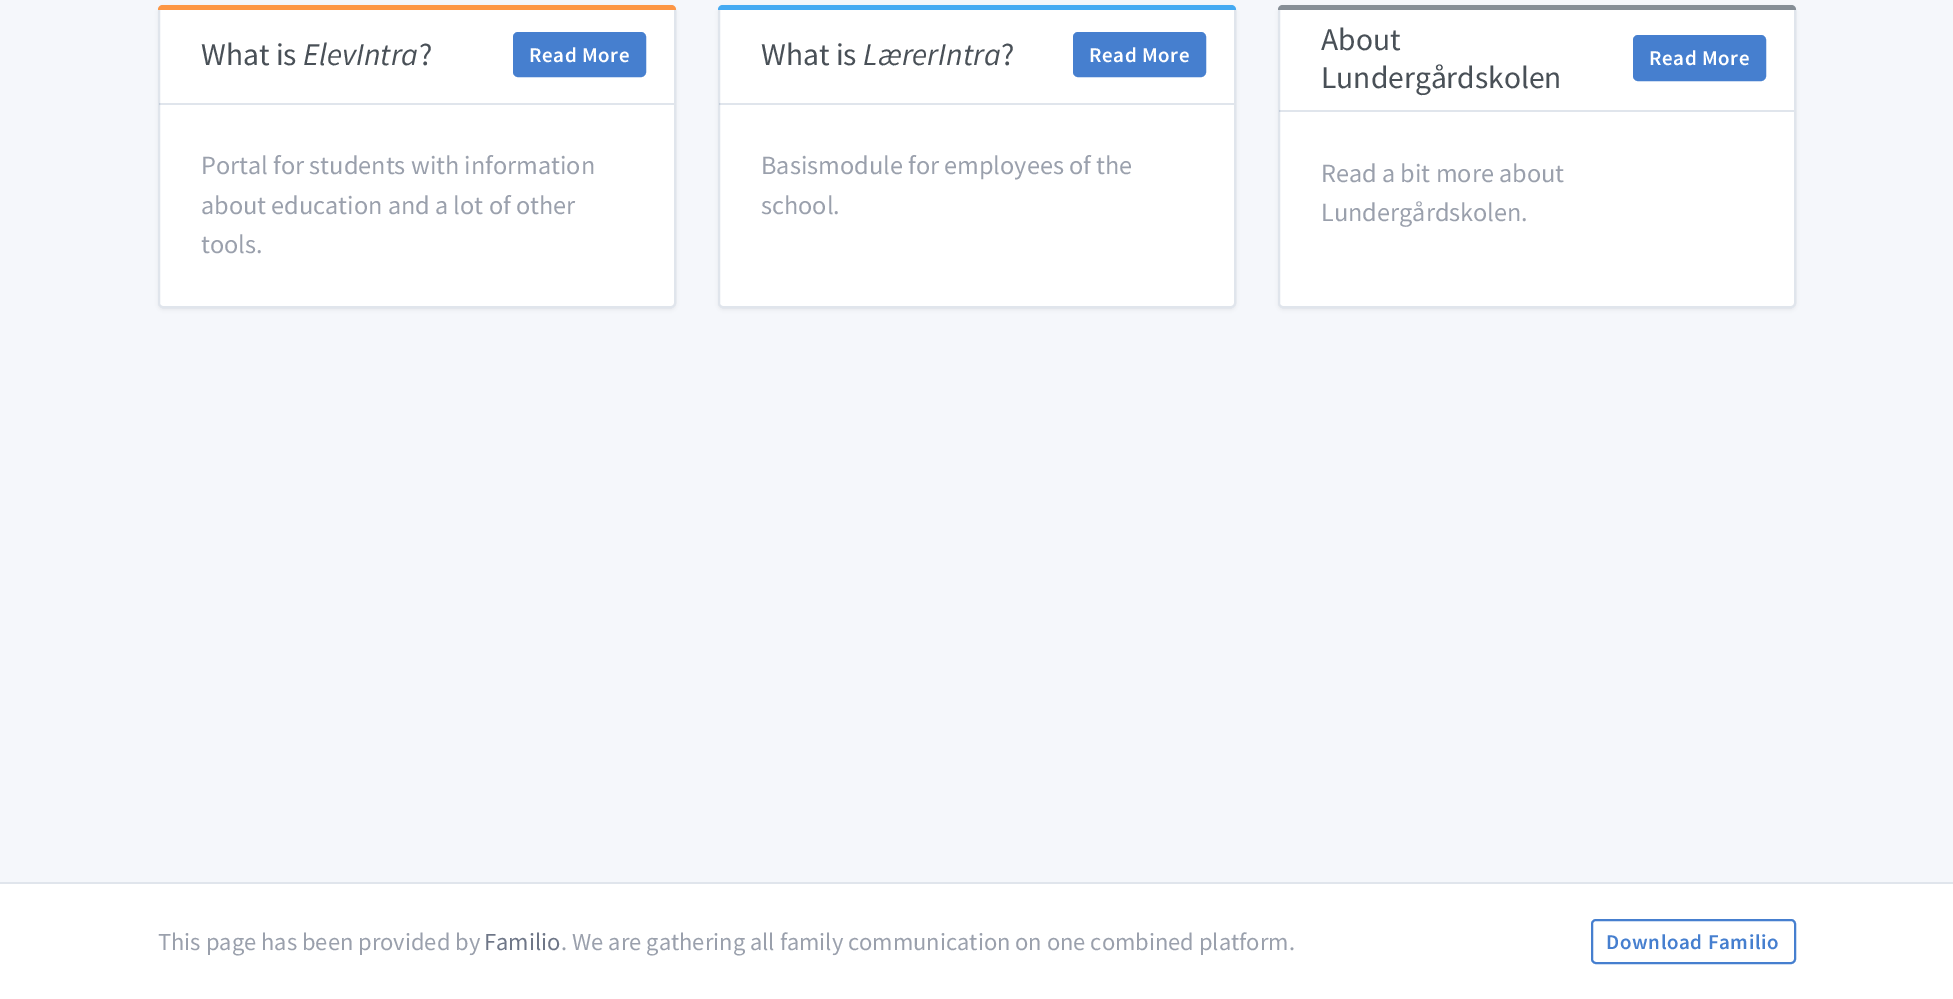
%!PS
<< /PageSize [1953 999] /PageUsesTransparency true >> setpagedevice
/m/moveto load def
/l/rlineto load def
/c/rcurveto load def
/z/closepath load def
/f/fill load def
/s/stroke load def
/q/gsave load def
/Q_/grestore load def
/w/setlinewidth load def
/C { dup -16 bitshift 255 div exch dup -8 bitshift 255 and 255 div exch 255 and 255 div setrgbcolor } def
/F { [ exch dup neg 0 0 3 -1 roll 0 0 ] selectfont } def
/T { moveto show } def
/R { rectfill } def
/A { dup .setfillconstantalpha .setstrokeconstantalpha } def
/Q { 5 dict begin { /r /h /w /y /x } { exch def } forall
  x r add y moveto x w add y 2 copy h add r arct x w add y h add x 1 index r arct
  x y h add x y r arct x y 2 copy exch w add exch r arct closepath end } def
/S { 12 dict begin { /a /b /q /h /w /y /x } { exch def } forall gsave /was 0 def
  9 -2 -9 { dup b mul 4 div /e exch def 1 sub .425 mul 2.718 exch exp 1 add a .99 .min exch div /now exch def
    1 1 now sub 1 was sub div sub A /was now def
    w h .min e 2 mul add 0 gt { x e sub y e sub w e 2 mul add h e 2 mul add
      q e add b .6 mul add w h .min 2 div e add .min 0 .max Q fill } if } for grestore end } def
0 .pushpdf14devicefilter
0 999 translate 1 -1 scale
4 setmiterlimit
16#F5F7FB C
0 0 1953 999 R
16#000000 C
158 7 518 303 5 2 .05 S
16#FFFFFF C
158 5 518 303 5 Q f
0.12 A
16#002864 C
2 w
159 6 516 301 4 Q s
1 A
16#FD9644 C
163 5 m 508 0 l 3 0 5 2 5 5 c -518 0 l 0 -3 2 -5 5 -5 c z f
0.12 A
16#002864 C
159 103 515 2 R
/SourceSansPro-Regular 31.5 F
1 A
16#495057 C
(What is) 201 65 T
/SourceSansPro-Italic 31.5 F
(ElevIntra) 303 65 T
/SourceSansPro-Regular 31.5 F
(?) 419 65 T
16#467FCF C
514 33 131 43 4 Q q f Q_
s
/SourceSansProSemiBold-SemiBold 21 F
16#FFFFFF C
529 62 m .6 0 (Read More) ashow
/SourceSansPro-Regular 26.25 F
16#9AA0AC C
(Portal for students with information) 201 174 T
(about education and a lot of other) 201 214 T
(tools.) 201 253 T
16#000000 C
718 7 518 303 5 2 .05 S
16#FFFFFF C
718 5 518 303 5 Q f
0.12 A
16#002864 C
719 6 516 301 4 Q s
1 A
16#45AAF2 C
723 5 m 508 0 l 3 0 5 2 5 5 c -518 0 l 0 -3 2 -5 5 -5 c z f
0.12 A
16#002864 C
719 103 515 2 R
/SourceSansPro-Regular 31.5 F
1 A
16#495057 C
(What is) 761 65 T
/SourceSansPro-Italic 31.5 F
(LærerIntra) 863 65 T
/SourceSansPro-Regular 31.5 F
(?) 1001 65 T
16#467FCF C
1074 33 131 43 4 Q q f Q_
s
/SourceSansProSemiBold-SemiBold 21 F
16#FFFFFF C
1089 62 m .6 0 (Read More) ashow
/SourceSansPro-Regular 26.25 F
16#9AA0AC C
(Basismodule for employees of the) 761 174 T
(school.) 761 214 T
16#000000 C
1278 7 518 303 5 2 .05 S
16#FFFFFF C
1278 5 518 303 5 Q f
0.12 A
16#002864 C
1279 6 516 301 4 Q s
1 A
16#868E96 C
1283 5 m 508 0 l 3 0 5 2 5 5 c -518 0 l 0 -3 2 -5 5 -5 c z f
0.12 A
16#002864 C
1279 110 515 2 R
/SourceSansPro-Regular 31.5 F
1 A
16#495057 C
(About) 1321 50 T
(Lundergårdskolen) 1321 88 T
16#467FCF C
1634 36 131 44 4 Q q f Q_
s
/SourceSansProSemiBold-SemiBold 21 F
16#FFFFFF C
1649 65 m .6 0 (Read More) ashow
/SourceSansPro-Regular 26.25 F
16#9AA0AC C
(Read a bit more about) 1321 182 T
(Lundergårdskolen.) 1321 221 T
16#FFFFFF C
0 884 1953 115 R
16#E0E5EC C
0 882 1953 2 R
/SourceSansPro-Regular 24.5 F
16#9AA0AC C
(This page has been provided by) 158 950 T
16#6E7687 C
(Familio) 484 950 T
16#9AA0AC C
(. We are gathering all family communication on one combined platform.) 561 950 T
16#467FCF C
1592 920 203 43 4 Q s
/SourceSansProSemiBold-SemiBold 21 F
1606 949 m .6 0 (Download Familio) ashow
.poppdf14devicefilter showpage
